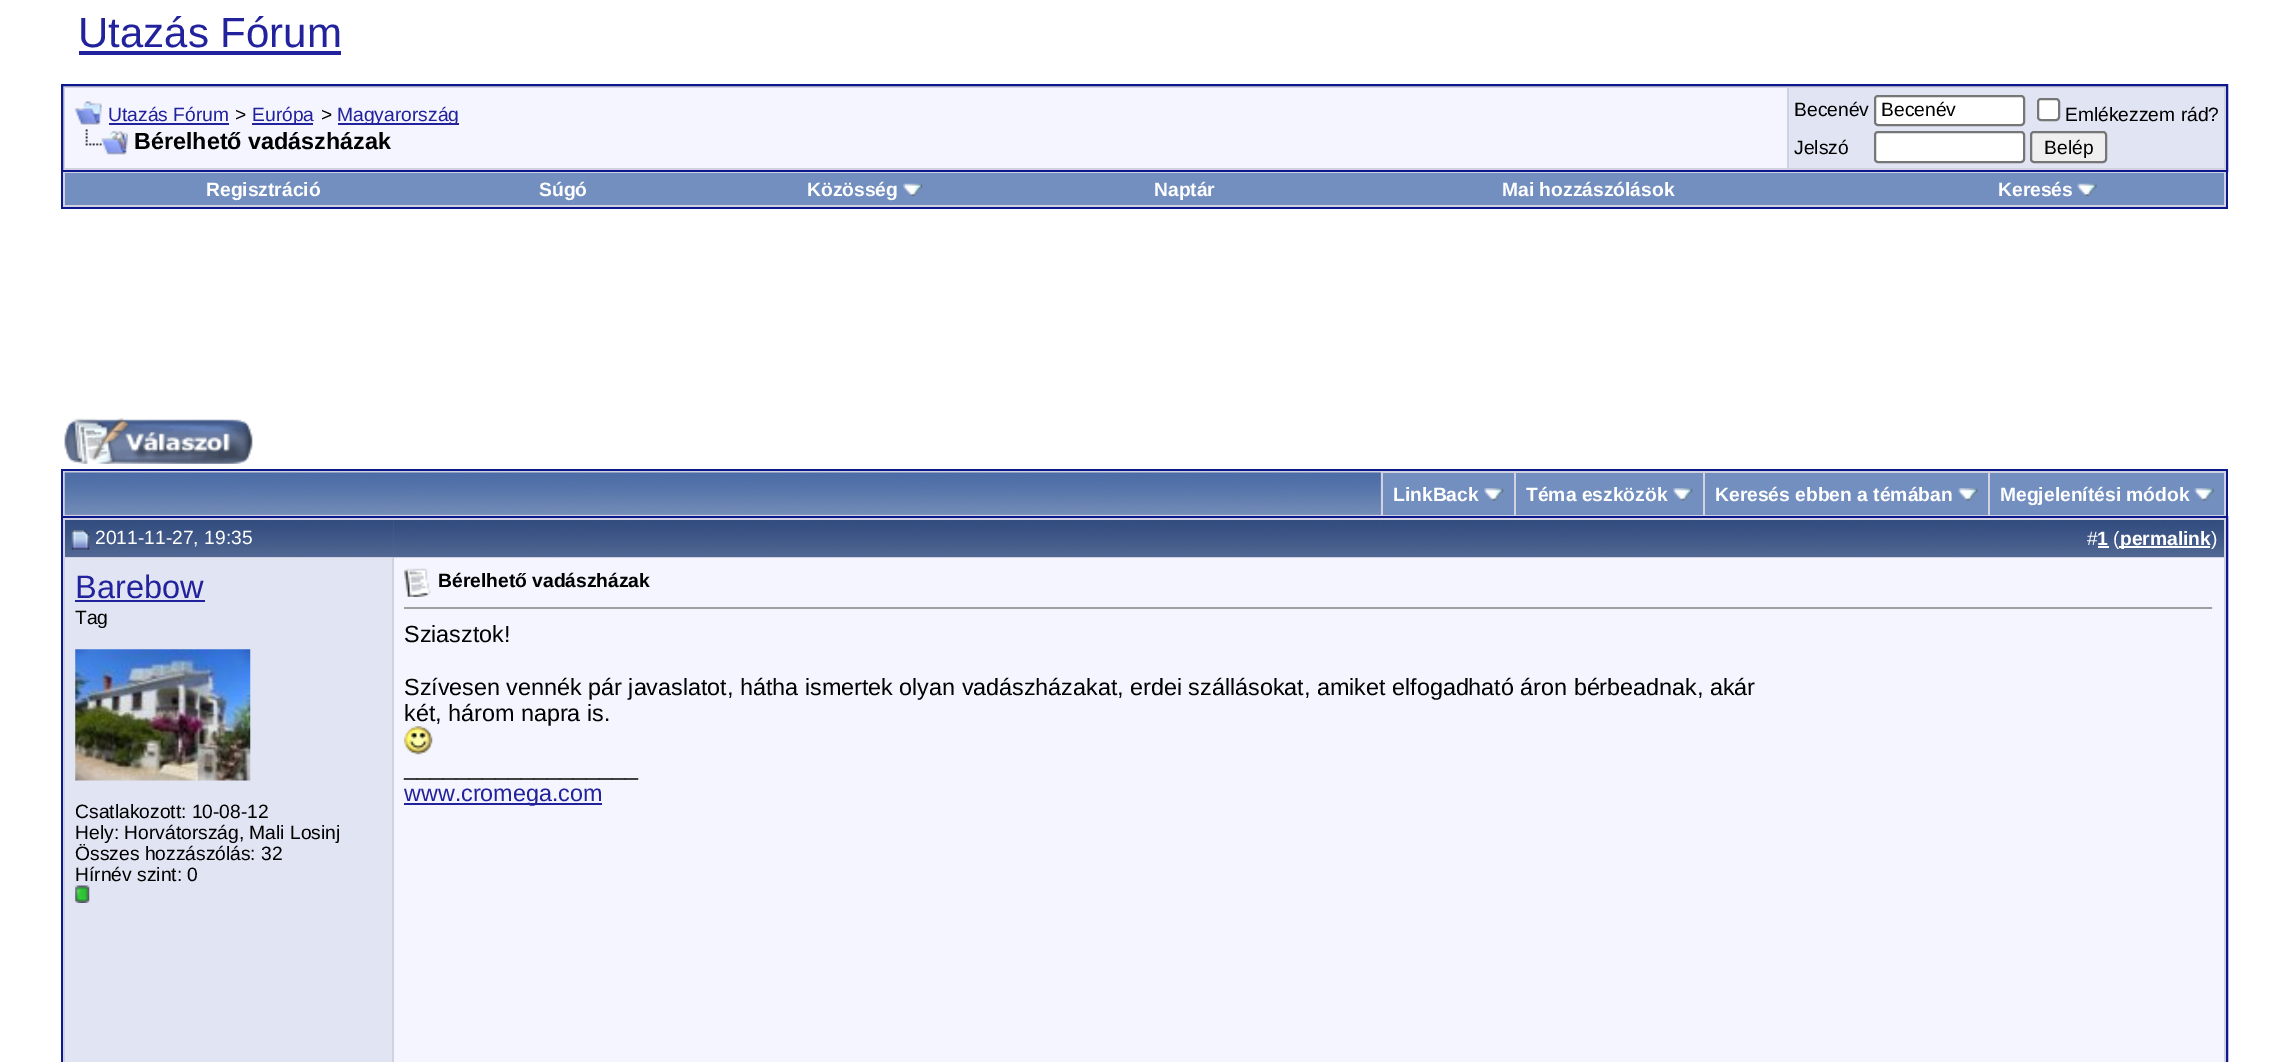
%!PS
<< /PageSize [2289 1062] >> setpagedevice
/m/moveto load def
/l/rlineto load def
/z/closepath load def
/f/fill load def
/s/stroke load def
/q/gsave load def
/Q_/grestore load def
/w/setlinewidth load def
/C { dup -16 bitshift 255 div exch dup -8 bitshift 255 and 255 div exch 255 and 255 div setrgbcolor } def
/F { [ exch dup neg 0 0 3 -1 roll 0 0 ] selectfont } def
/T { moveto show } def
/R { rectfill } def
/Q { 5 dict begin { /r /h /w /y /x } { exch def } forall
  x r add y moveto x w add y 2 copy h add r arct x w add y h add x 1 index r arct
  x y h add x y r arct x y 2 copy exch w add exch r arct closepath end } def
/I { 5 dict begin { /h /w /y /x /name } { exch def } forall
  gsave x y translate w h scale
  w h 8 [w 0 0 h 0 0] name (r) file false 3 colorimage grestore end } def
0 1062 translate 1 -1 scale
4 setmiterlimit
16#FFFFFF C
0 0 2289 1062 R
/LiberationSans-Regular 42 F
16#22229C C
(Utazás Fórum) 78 47 T
79 51 262 4 R
16#D1D1E1 C
62 85 m 2165 0 l 0 86 l -2165 0 l z q f Q_
16#0B198C C
2 w
s
16#F5F5FF C
65 88 1722 80 R
(1.rgb) 75 101 27 24 I
/LiberationSans-Regular 19.25 F
16#22229C C
(Utazás Fórum) 108 121 T
109 123 120 2 R
16#000000 C
(>) 235 121 T
16#22229C C
252 123 61 2 R
(Európa) 252 121 T
16#000000 C
(>) 321 121 T
16#22229C C
338 123 121 2 R
(Magyarország) 337 121 T
(2.rgb) 85 129 43 26 I
/LiberationSans-Bold 23.33 F
16#000000 C
(Bérelhető vadászházak) 134 149 T
16#E1E4F2 C
1789 88 435 80 R
/LiberationSans-Regular 19.25 F
16#000000 C
(Becenév) 1794 116 T
16#FFFFFF C
1875 96 149 29 3 Q q f Q_
16#767676 C
s
16#000000 C
(Becenév) 1881 116 T
16#FFFFFF C
2038 99 21 21 3 Q q f Q_
16#767676 C
s
16#000000 C
(Emlékezzem rád?) 2065 121 T
(Jelszó) 1794 154 T
16#FFFFFF C
1875 132 149 30 3 Q q f Q_
16#767676 C
s
16#EFEFEF C
2031 132 75 30 3 Q q f Q_
16#767676 C
s
16#000000 C
(Belép) 2044 154 T
16#D1D1E1 C
63 172 2163 35 R
16#0B198C C
2226 172 2 36 R
61 207 2167 2 R
61 172 2 36 R
16#738FBF C
65 173 2159 32 R
/LiberationSans-Bold 19.25 F
16#FFFFFF C
(Regisztráció) 206 196 T
(Súgó) 539 196 T
(Közösség) 807 196 T
(3.rgb) 903 183 20 13 I
(Naptár) 1154 196 T
(Mai hozzászólások) 1502 196 T
(Keresés) 1998 196 T
(4.rgb) 2077 183 20 13 I
(5.rgb) 64 418 189 46 I
16#D1D1E1 C
63 471 2163 45 R
16#0B198C C
61 469 2167 2 R
2226 469 2 47 R
61 469 2 47 R
16#869BBF C
65 473 1316 42 R
(6.rgb) 64 472 1317 43 I
16#738FBF C
1383 473 131 42 R
16#FFFFFF C
(LinkBack) 1393 501 T
(7.rgb) 1484 488 20 13 I
16#738FBF C
1516 473 187 42 R
16#FFFFFF C
(Téma eszközök) 1526 501 T
(7.rgb) 1673 488 20 13 I
16#738FBF C
1705 473 283 42 R
16#FFFFFF C
(Keresés ebben a témában) 1715 501 T
(8.rgb) 1958 488 20 13 I
16#738FBF C
1990 473 234 42 R
16#FFFFFF C
(Megjelenítési módok) 2000 501 T
(9.rgb) 2194 488 20 13 I
16#0B198C C
62 517 2165 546 rectstroke
(10.rgb) 65 520 329 37 I
16#D1D1E1 C
63 518 331 2 R
63 557 331 1 R
63 518 2 544 R
(11.rgb) 71 530 19 20 I
/LiberationSans-Regular 19.25 F
16#FFFFFF C
(2011-11-27, 19:35) 95 544 T
(12.rgb) 393 519 1831 39 I
16#D1D1E1 C
394 518 1832 2 R
2224 518 2 544 R
394 557 1832 1 R
16#FFFFFF C
(#) 2087 545 T
/LiberationSans-Bold 19.25 F
(1) 2097 545 T
2098 546 11 2 R
/LiberationSans-Regular 19.25 F
(\() 2113 545 T
2119 546 91 2 R
/LiberationSans-Bold 19.25 F
(permalink) 2120 545 T
/LiberationSans-Regular 19.25 F
(\)) 2211 545 T
16#E1E4F2 C
65 558 327 504 R
16#D1D1E1 C
392 558 2 504 R
/LiberationSans-Regular 32.5 F
16#22229C C
(Barebow) 75 598 T
75 600 130 2 R
/LiberationSans-Regular 19.25 F
16#000000 C
(Tag) 75 624 T
(13.rgb) 75 649 176 132 I
(Csatlakozott: 10-08-12) 75 818 T
(Hely: Horvátország, Mali Losinj) 75 839 T
(Összes hozzászólás: 32) 75 860 T
(Hírnév szint: 0) 75 881 T
(14.rgb) 75 885 15 18 I
16#F5F5FF C
394 558 1830 504 R
(15.rgb) 404 568 27 29 I
/LiberationSans-Bold 19.25 F
16#000000 C
(Bérelhető vadászházak) 438 587 T
16#9F9F9F C
404 607 1810 2 R
16#EEEEEE C
2212 607 2 2 R
/LiberationSans-Regular 23.33 F
16#000000 C
(Sziasztok!) 404 642 T
(Szívesen vennék pár javaslatot, hátha ismertek olyan vadászházakat, erdei szállásokat, amiket elfogadható áron bérbeadnak, akár) 404 695 T
(két, három napra is.) 404 721 T
(16.rgb) 404 726 29 29 I
(__________________) 404 775 T
16#22229C C
404 803 198 2 R
(www.cromega.com) 404 801 T
showpage
